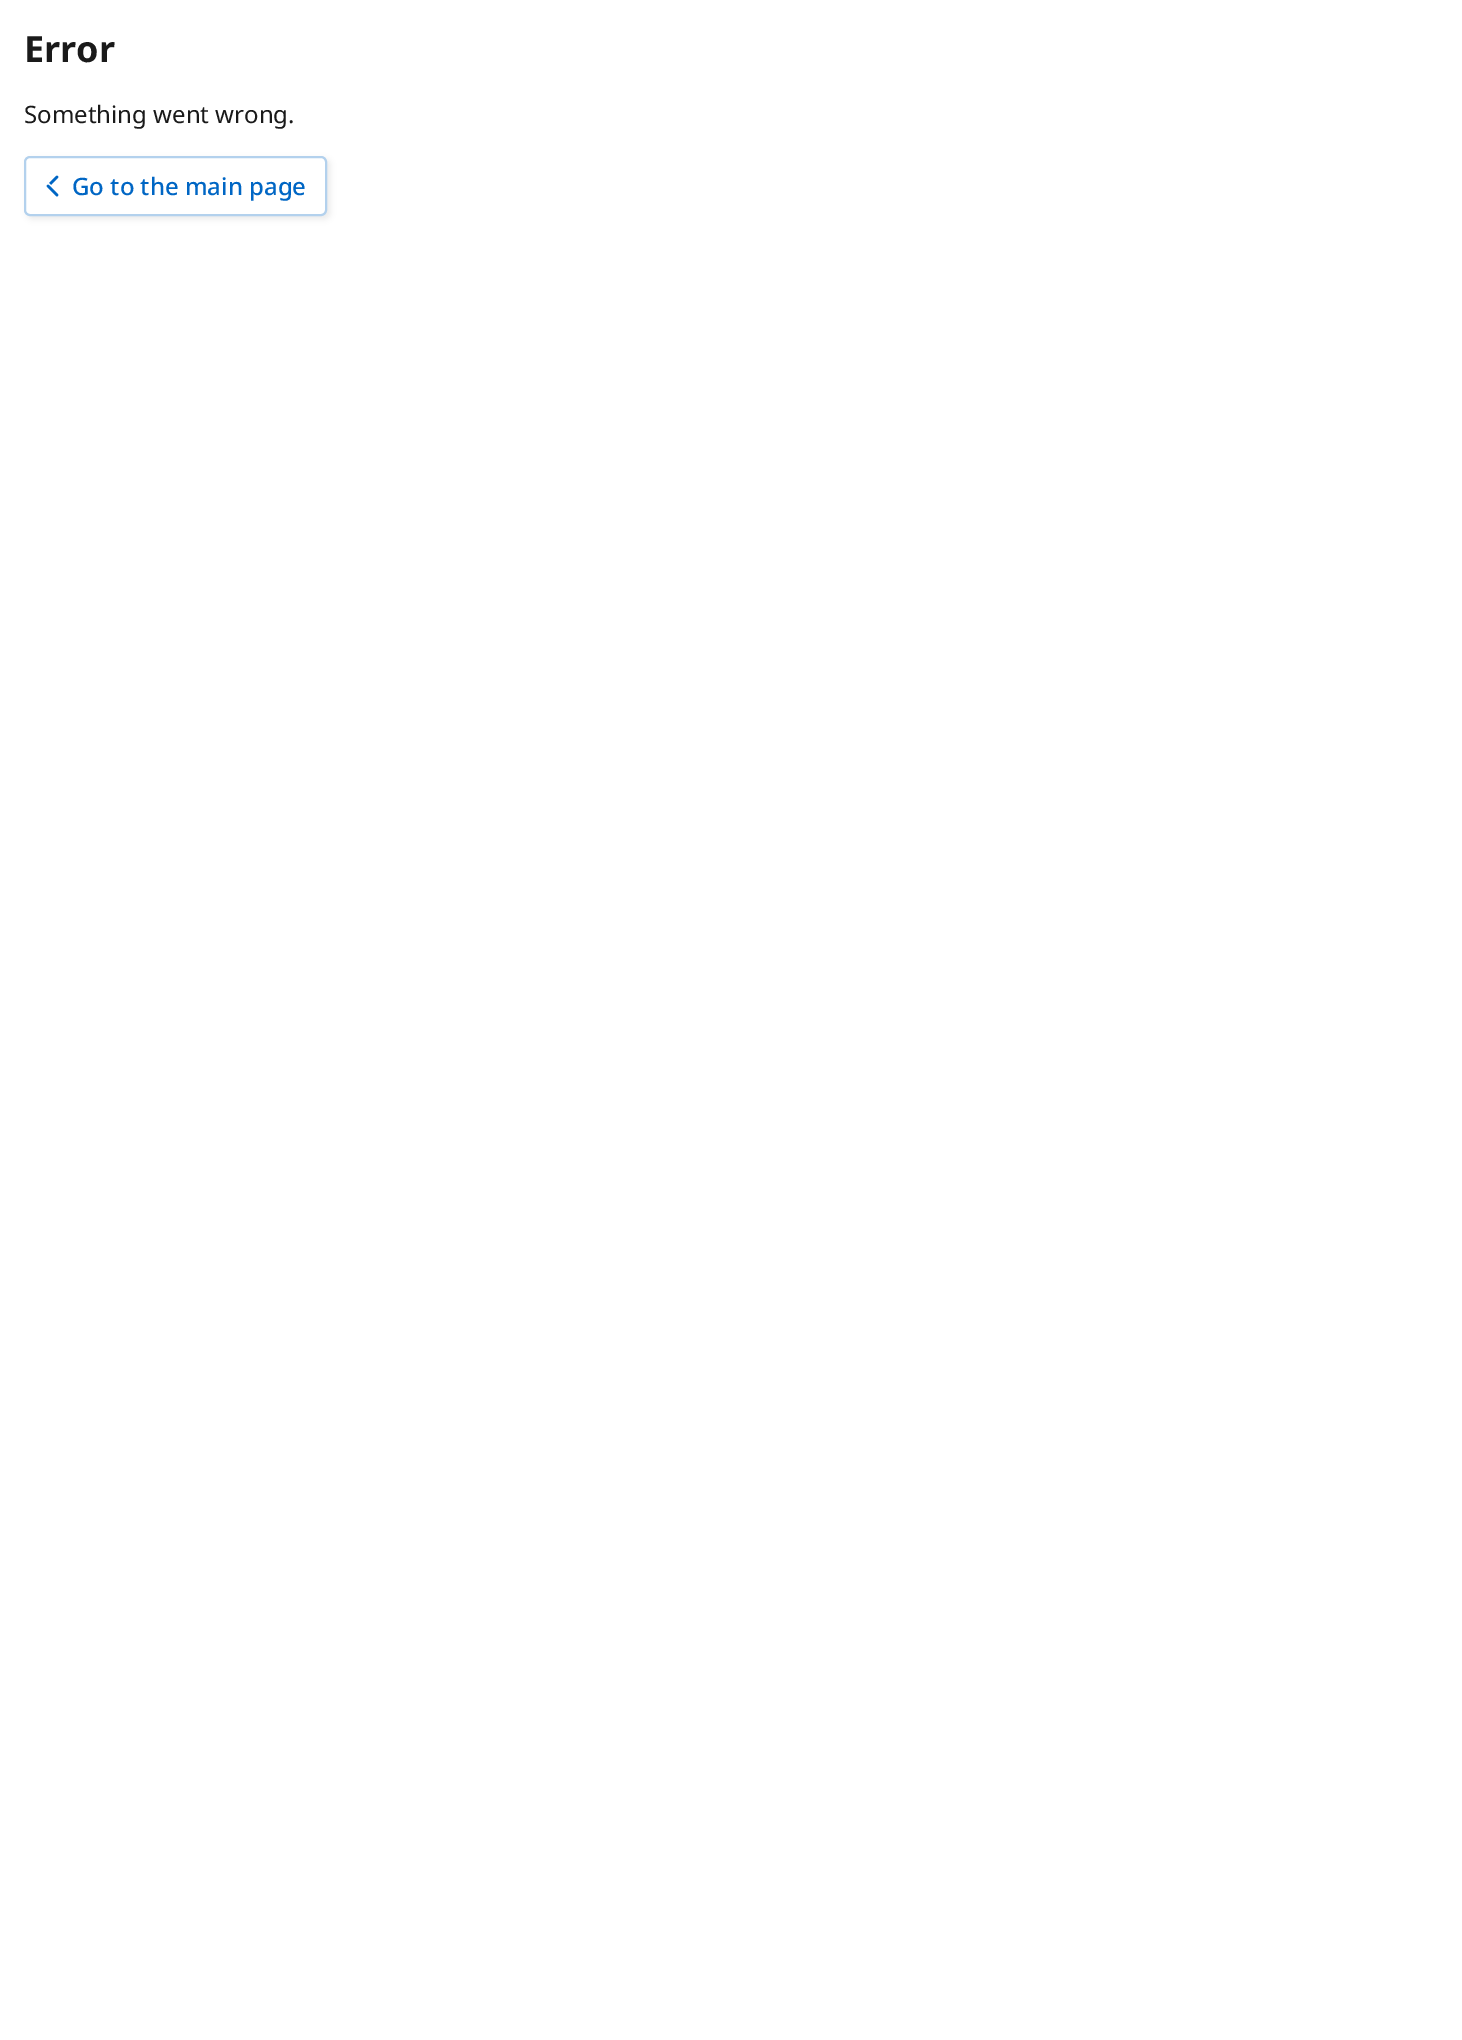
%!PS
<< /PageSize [1462 2040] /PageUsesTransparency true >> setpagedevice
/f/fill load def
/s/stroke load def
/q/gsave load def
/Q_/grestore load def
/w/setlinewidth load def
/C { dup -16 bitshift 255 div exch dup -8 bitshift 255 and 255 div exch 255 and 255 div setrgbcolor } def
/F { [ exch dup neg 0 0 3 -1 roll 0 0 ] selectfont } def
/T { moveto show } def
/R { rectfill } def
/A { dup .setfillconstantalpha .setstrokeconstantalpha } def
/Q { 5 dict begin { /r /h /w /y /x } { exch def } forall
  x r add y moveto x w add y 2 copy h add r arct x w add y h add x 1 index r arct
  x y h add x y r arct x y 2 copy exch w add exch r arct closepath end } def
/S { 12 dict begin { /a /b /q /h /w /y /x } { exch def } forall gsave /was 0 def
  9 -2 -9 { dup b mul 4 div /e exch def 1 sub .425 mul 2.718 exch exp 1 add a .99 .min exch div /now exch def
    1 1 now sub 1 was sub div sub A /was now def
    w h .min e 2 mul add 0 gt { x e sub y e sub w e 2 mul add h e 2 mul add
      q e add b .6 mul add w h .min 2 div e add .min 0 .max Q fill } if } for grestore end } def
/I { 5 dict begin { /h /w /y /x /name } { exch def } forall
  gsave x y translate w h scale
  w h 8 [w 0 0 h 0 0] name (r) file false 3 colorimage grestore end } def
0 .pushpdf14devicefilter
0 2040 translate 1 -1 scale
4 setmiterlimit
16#FFFFFF C
0 0 1462 2040 R
/NotoSans-Bold 36 F
16#1A1A1A C
(Error) 24 62 T
/NotoSans-Regular 24 F
(Something went wrong.) 24 123 T
16#000000 C
27 159 303 60 6 3 .08 S
16#FFFFFF C
25 157 301 58 5 Q q f Q_
16#B3D1ED C
2 w
s
(1.rgb) 46 175 13 22 I
/NotoSans-Medium 24 F
16#0066C4 C
(Go to the main page) 72 195 T
.poppdf14devicefilter showpage
